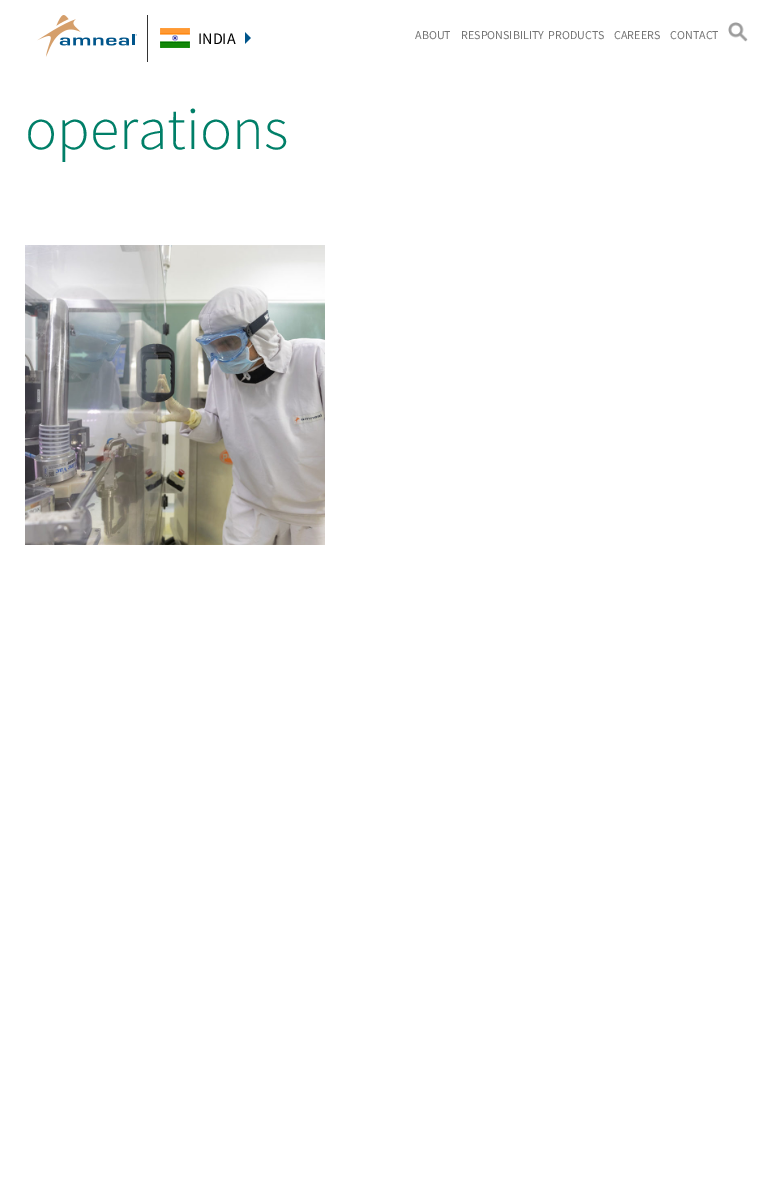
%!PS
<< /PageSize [773 1183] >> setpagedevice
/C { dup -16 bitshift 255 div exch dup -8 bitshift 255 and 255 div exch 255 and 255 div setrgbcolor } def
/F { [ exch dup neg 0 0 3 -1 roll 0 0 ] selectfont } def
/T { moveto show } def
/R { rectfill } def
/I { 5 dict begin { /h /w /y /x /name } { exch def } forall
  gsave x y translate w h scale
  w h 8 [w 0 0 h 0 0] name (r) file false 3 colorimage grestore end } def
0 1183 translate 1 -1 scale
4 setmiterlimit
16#FFFFFF C
0 0 773 1183 R
(1.rgb) 37 15 100 42 I
16#333333 C
147 15 1 47 R
(2.rgb) 160 28 30 20 I
/SourceSansPro-Regular 16 F
16#000000 C
(INDIA) 198 44 T
(3.rgb) 245 32 6 12 I
/SourceSansPro-Regular 12 F
16#757575 C
(ABOUT) 415 39 T
(RESPONSIBILITY) 461 39 T
(PRODUCTS) 548 39 T
(CAREERS) 614 39 T
(CONTACT) 670 39 T
(4.rgb) 728 22 20 20 I
/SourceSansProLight-Light 60 F
16#007F68 C
(operations) 25 149 T
(5.rgb) 25 245 300 300 I
showpage
